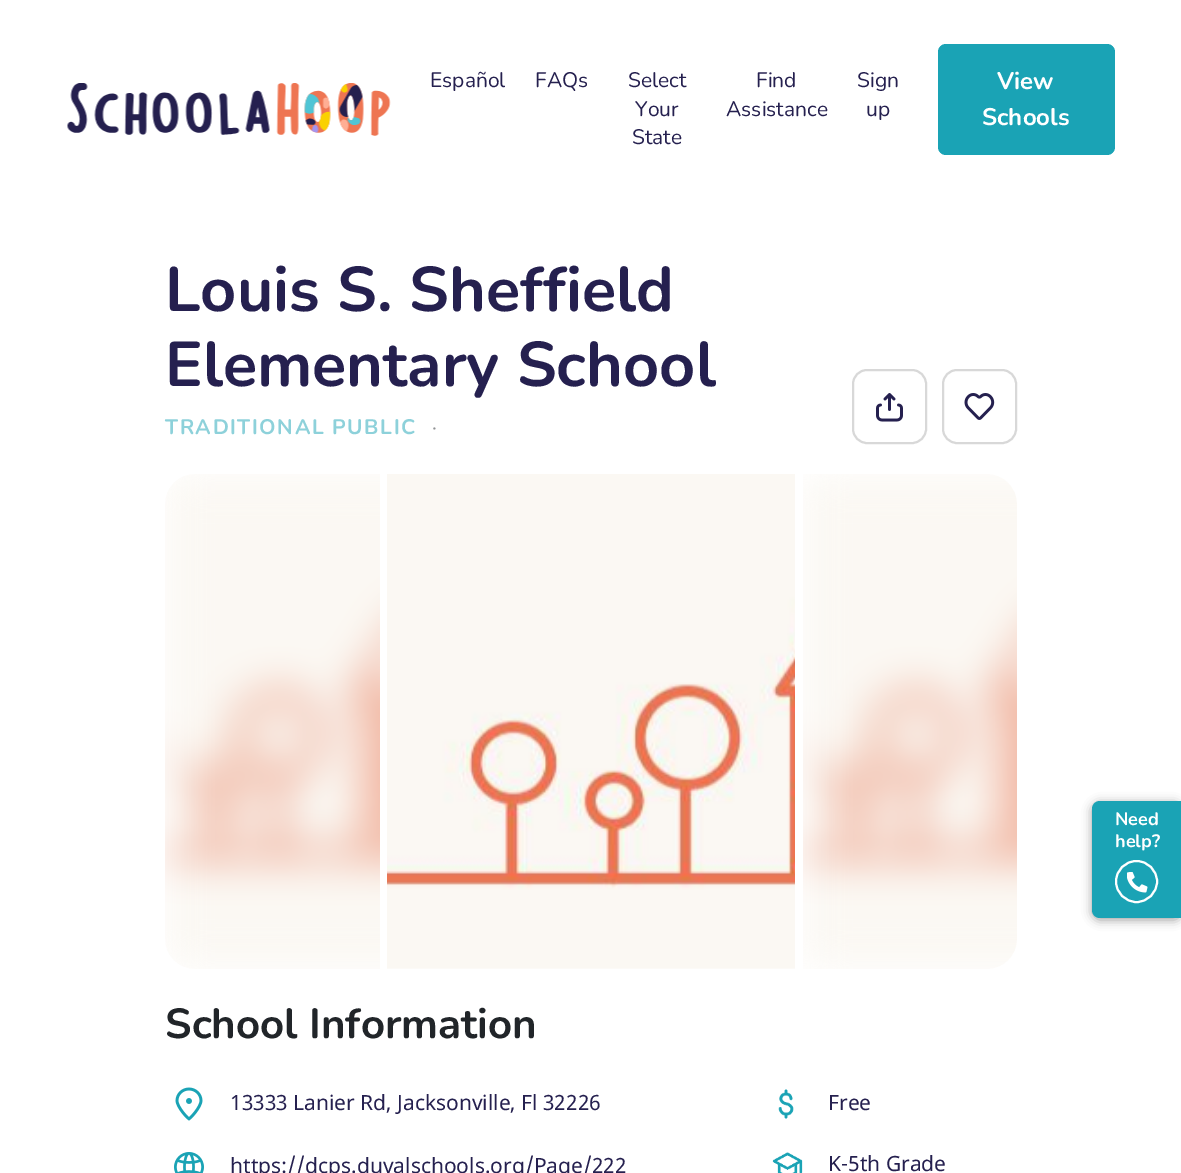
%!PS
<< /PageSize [1181 1173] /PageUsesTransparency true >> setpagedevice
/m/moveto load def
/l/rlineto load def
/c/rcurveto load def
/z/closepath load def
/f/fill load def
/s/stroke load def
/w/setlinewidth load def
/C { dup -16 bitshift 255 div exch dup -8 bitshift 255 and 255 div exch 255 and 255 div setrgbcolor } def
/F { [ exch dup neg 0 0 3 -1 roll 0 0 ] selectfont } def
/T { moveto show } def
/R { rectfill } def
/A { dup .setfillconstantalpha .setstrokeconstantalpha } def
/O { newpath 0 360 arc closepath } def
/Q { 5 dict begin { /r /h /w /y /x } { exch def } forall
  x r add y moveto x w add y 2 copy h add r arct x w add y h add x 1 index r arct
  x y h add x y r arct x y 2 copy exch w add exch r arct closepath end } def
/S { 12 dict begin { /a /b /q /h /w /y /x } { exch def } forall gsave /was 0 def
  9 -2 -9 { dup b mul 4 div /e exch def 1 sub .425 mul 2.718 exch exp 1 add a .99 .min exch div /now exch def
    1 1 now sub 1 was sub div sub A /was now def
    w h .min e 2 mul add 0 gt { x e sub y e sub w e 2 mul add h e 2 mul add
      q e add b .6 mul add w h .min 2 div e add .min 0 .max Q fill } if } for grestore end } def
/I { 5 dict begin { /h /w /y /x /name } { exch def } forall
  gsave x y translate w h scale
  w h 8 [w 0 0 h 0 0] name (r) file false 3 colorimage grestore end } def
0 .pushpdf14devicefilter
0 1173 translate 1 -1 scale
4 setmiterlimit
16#FFFFFF C
0 0 1181 1173 R
(1.rgb) 67 83 324 53 I
/Nunito-Regular 21 F
16#25204F C
(Español) 430 87 T
(FAQs) 535 87 T
(Select) 628 87 T
(Your) 635 116 T
(State) 632 144 T
(Find) 756 87 T
(Assistance) 726 116 T
(Sign) 857 87 T
(up) 866 116 T
16#1AA3B5 C
938 44 177 111 8 Q f
/Nunito-Bold 24 F
16#FFFFFF C
(View) 997 89 T
(Schools) 982 125 T
/Nunito-Bold 63 F
16#25204F C
(Louis S. Sheffield) 165 311 T
(Elementary School) 165 386 T
/Nunito-Bold 21 F
16#8DD1DA C
165 434 m 1.5 0 (TRADITIONAL PUBLIC) ashow
/Nunito-Regular 21 F
16#909294 C
432 434 m 1.5 0 (·) ashow
16#D8D8D8 C
2 w
853 370 73 73 14 Q s
(2.rgb) 876 393 27 29 I
943 370 73 73 14 Q s
(3.rgb) 964 393 31 27 I
(4.rgb) 165 474 215 495 I
(5.rgb) 387 474 408 495 I
(6.rgb) 803 474 214 495 I
/Nunito-Bold 42 F
16#212529 C
(School Information) 165 1038 T
(7.rgb) 175 1087 28 34 I
/NotoSans-Regular 21 F
16#25204F C
(13333 Lanier Rd, Jacksonville, Fl 32226) 230 1110 T
(8.rgb) 174 1152 30 21 I
(https://dcps.duvalschools.org/Page/222) 230 1173 T
(9.rgb) 778 1089 16 30 I
(Free) 828 1110 T
(10.rgb) 772 1152 31 21 I
(K-5th Grade) 828 1171 T
16#000000 C
1092 803 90 117 8 5 .37 S
16#1AA3B5 C
1100 801 m 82 0 l 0 117 l -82 0 l -4.5 0 -8 -3.5 -8 -8 c 0 -101 l 0 -4.5 3.5 -8 8 -8 c z f
/Nunito-Bold 18 F
16#FFFFFF C
(Need) 1115 825 T
(help?) 1115 847 T
(11.rgb) 1127 872 21 21 I
1136.5 881.5 20.5 O s
.poppdf14devicefilter showpage
